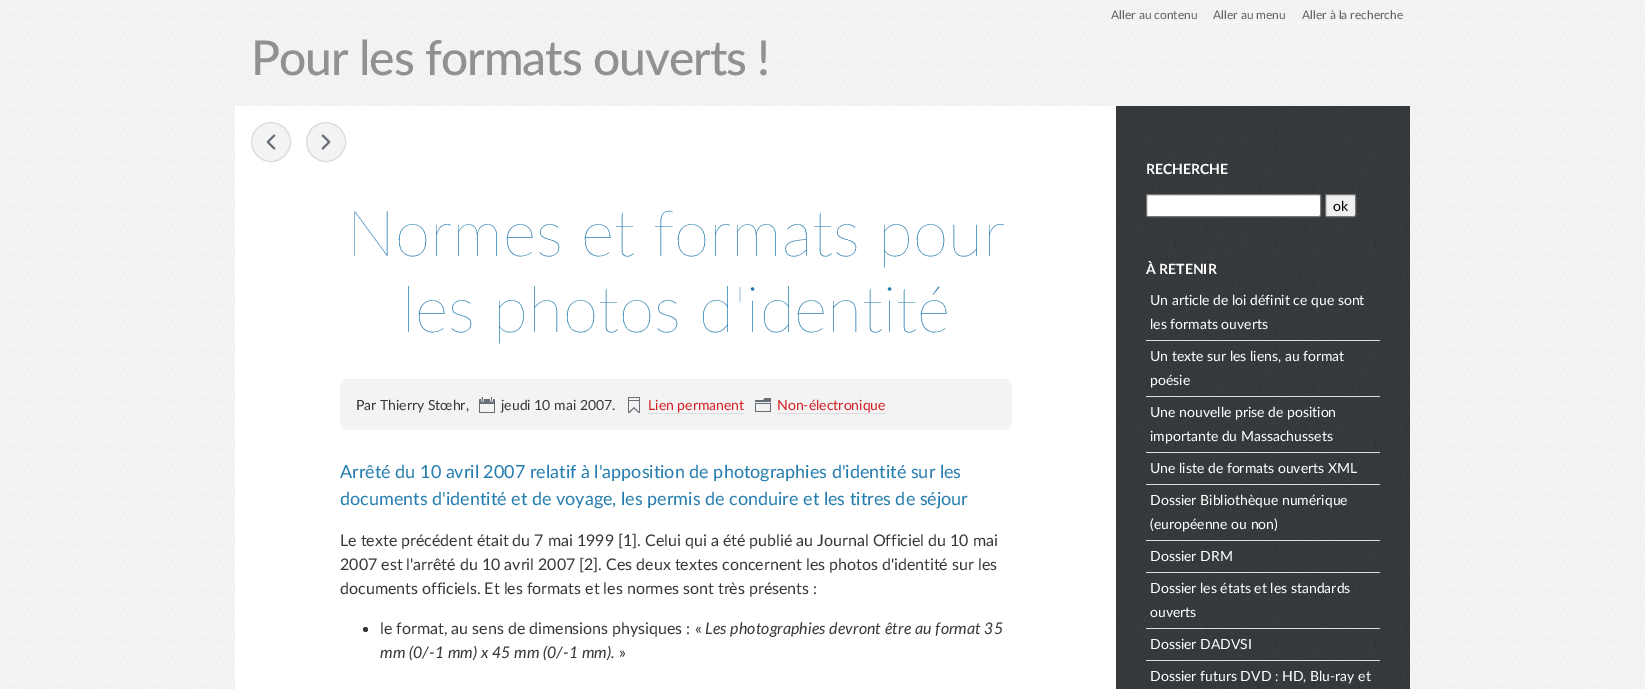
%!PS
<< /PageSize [1645 689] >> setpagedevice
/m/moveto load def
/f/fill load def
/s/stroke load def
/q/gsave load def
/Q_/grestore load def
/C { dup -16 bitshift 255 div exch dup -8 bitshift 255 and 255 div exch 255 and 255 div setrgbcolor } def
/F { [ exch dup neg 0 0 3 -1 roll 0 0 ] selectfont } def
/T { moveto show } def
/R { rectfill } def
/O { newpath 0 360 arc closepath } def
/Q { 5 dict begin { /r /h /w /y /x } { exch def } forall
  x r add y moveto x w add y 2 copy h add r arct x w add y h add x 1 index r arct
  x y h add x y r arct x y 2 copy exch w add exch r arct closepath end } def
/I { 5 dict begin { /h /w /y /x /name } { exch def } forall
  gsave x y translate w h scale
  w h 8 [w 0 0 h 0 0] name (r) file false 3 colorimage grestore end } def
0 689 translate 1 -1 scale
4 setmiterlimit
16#FFFFFF C
0 0 1645 689 R
(1.rgb) 0 0 1645 689 I
/Lato-Regular 12 F
16#636363 C
(Aller au contenu) 1111 19 T
16#FAFAFA C
1111 22 86 1 R
16#636363 C
(Aller au menu) 1213 19 T
16#FAFAFA C
1213 22 73 1 R
16#636363 C
(Aller à la recherche) 1302 19 T
16#FAFAFA C
1302 22 102 1 R
/Lato-Medium 48 F
16#919191 C
251 75 m -1 0 (Pour les formats ouverts !) ashow
16#FFFFFF C
235 106 881 583 R
16#F3F3F3 C
271 142 20 O f
(2.rgb) 266 134 10 16 I
16#DCDCDC C
271 142 19.5 O s
16#F3F3F3 C
326 142 20 O f
(3.rgb) 321 134 10 16 I
16#DCDCDC C
326 142 19.5 O s
/Lato-ExtraLight 64 F
16#267DAF C
(Normes et formats pour) 347 256 T
(les photos d'identité) 402 332 T
16#F3F3F3 C
340 379 672 51 8 Q f
/Lato-Regular 14 F
16#373737 C
(Par Thierry Stœhr,) 356 410 T
(4.rgb) 479 397 16 16 I
(jeudi 10 mai 2007.) 501 410 T
(5.rgb) 627 397 13 16 I
16#D52125 C
(Lien permanent) 648 410 T
16#DCDCDC C
648 413 96 1 R
(6.rgb) 755 398 16 14 I
16#D52125 C
(Non-électronique) 777 410 T
16#DCDCDC C
777 413 109 1 R
/Lato-Regular 18 F
16#267DAF C
(Arrêté du 10 avril 2007 relatif à l'apposition de photographies d'identité sur les) 340 478 T
(documents d'identité et de voyage, les permis de conduire et les titres de séjour) 340 505 T
/Lato-Regular 16 F
16#373737 C
(Le texte précédent était du 7 mai 1999 [1]. Celui qui a été publié au Journal Officiel du 10 mai) 340 546 T
(2007 est l'arrêté du 10 avril 2007 [2]. Ces deux textes concernent les photos d'identité sur les) 340 570 T
(documents officiels. Et les formats et les normes sont très présents :) 340 594 T
365.5 629.5 2.5 O f
(le format, au sens de dimensions physiques : «) 380 634 T
/Lato-Italic 16 F
(Les photographies devront être au format 35) 705 634 T
(mm \(0/-1 mm\) x 45 mm \(0/-1 mm\).) 380 658 T
/Lato-Regular 16 F
(») 619 658 T
(7.rgb) 1116 106 294 583 I
/Lato-Bold 14 F
16#FFFFFF C
(RECHERCHE) 1146 174 T
1146.5 194.5 174 22 1.5 Q q f Q_
16#767676 C
s
16#EFEFEF C
1325.5 194.5 30 22 1.5 Q q f Q_
16#767676 C
s
/Lato-Regular 14 F
16#000000 C
(ok) 1333 211 T
/Lato-Bold 14 F
16#FFFFFF C
(À RETENIR) 1146 274 T
16#DCDCDC C
1146 340 234 1 R
/Lato-Regular 14 F
16#FFFFFF C
(Un article de loi définit ce que sont) 1150 305 T
(les formats ouverts) 1150 329 T
16#DCDCDC C
1146 396 234 1 R
16#FFFFFF C
(Un texte sur les liens, au format) 1150 361 T
(poésie) 1150 385 T
16#DCDCDC C
1146 452 234 1 R
16#FFFFFF C
(Une nouvelle prise de position) 1150 417 T
(importante du Massachussets) 1150 441 T
16#DCDCDC C
1146 484 234 1 R
16#FFFFFF C
(Une liste de formats ouverts XML) 1150 473 T
16#DCDCDC C
1146 540 234 1 R
16#FFFFFF C
(Dossier Bibliothèque numérique) 1150 505 T
(\(européenne ou non\)) 1150 529 T
16#DCDCDC C
1146 572 234 1 R
16#FFFFFF C
(Dossier DRM) 1150 561 T
16#DCDCDC C
1146 628 234 1 R
16#FFFFFF C
(Dossier les états et les standards) 1150 593 T
(ouverts) 1150 617 T
16#DCDCDC C
1146 660 234 1 R
16#FFFFFF C
(Dossier DADVSI) 1150 649 T
(Dossier futurs DVD : HD, Blu-ray et) 1150 681 T
showpage
